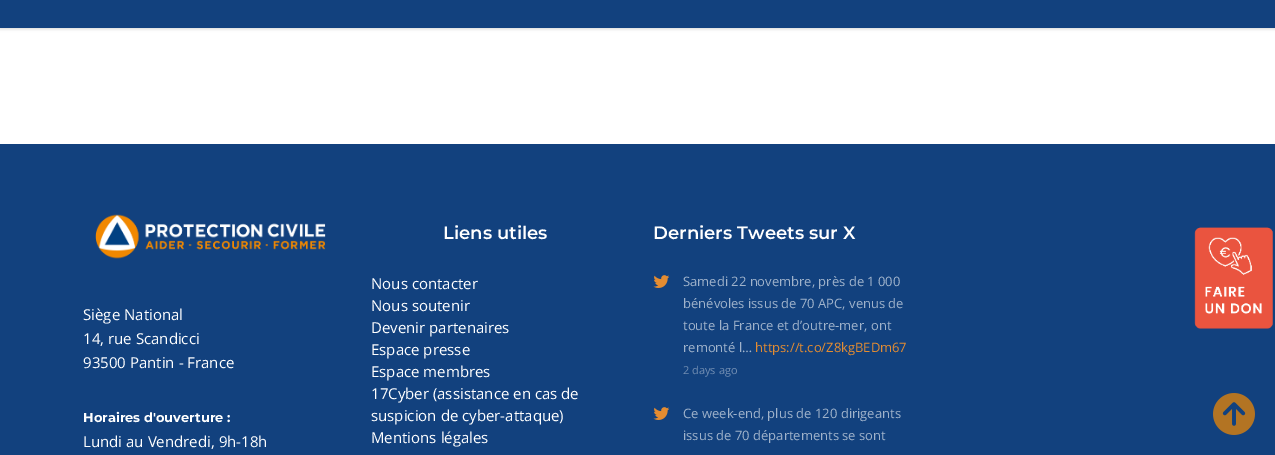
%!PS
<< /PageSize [1275 455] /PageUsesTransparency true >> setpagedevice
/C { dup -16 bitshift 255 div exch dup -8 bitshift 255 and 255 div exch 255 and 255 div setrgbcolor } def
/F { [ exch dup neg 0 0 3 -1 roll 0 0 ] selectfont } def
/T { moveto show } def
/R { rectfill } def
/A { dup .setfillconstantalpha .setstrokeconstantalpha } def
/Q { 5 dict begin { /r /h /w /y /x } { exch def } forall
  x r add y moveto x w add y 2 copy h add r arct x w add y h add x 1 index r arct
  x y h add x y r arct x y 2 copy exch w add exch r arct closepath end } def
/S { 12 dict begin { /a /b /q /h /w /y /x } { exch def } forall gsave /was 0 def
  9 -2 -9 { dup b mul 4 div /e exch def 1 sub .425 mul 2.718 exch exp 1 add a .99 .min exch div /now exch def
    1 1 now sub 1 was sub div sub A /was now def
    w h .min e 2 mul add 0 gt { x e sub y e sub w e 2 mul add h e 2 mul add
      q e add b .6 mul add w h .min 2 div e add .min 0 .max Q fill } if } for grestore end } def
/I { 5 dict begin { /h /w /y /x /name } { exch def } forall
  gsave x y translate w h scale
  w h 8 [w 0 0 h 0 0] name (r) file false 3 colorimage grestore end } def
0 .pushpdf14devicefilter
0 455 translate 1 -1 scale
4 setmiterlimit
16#FFFFFF C
0 0 1275 455 R
16#000000 C
0 -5 1275 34 0 1.5 .15 S
16#12417E C
0 0 1275 28 R
0 144 1275 311 R
(1.rgb) 95 214 231 45 I
/OpenSans-Regular 15 F
16#FFFFFF C
(Siège National) 83 320 T
(14, rue Scandicci) 83 344 T
(93500 Pantin - France) 83 368 T
/Montserrat-Bold 13 F
(Horaires d'ouverture :) 83 422 T
/OpenSans-Regular 15 F
(Lundi au Vendredi, 9h-18h) 83 447 T
(2.rgb) 1213 393 42 42 I
/Montserrat-SemiBold 18 F
(Liens utiles) 443 239 T
/OpenSans-Regular 15 F
(Nous contacter) 371 289 T
(Nous soutenir) 371 311 T
(Devenir partenaires) 371 333 T
(Espace presse) 371 355 T
(Espace membres) 371 377 T
(17Cyber \(assistance en cas de) 371 399 T
(suspicion de cyber-attaque\)) 371 421 T
(Mentions légales) 371 443 T
/Montserrat-SemiBold 18 F
(Derniers Tweets sur X) 653 239 T
(3.rgb) 653 275 17 13 I
/OpenSans-Regular 13 F
16#A0B3CB C
(Samedi 22 novembre, près de 1 000) 683 286 T
(bénévoles issus de 70 APC, venus de) 683 308 T
(toute la France et d’outre-mer, ont) 683 330 T
(remonté l…) 683 352 T
16#E48C31 C
(https://t.co/Z8kgBEDm67) 755 352 T
/OpenSans-Regular 11 F
16#718DB2 C
(2 days ago) 683 374 T
(3.rgb) 653 407 17 13 I
/OpenSans-Regular 13 F
16#A0B3CB C
(Ce week-end, plus de 120 dirigeants) 683 418 T
(issus de 70 départements se sont) 683 440 T
(4.rgb) 1194 227 79 102 I
.poppdf14devicefilter showpage
